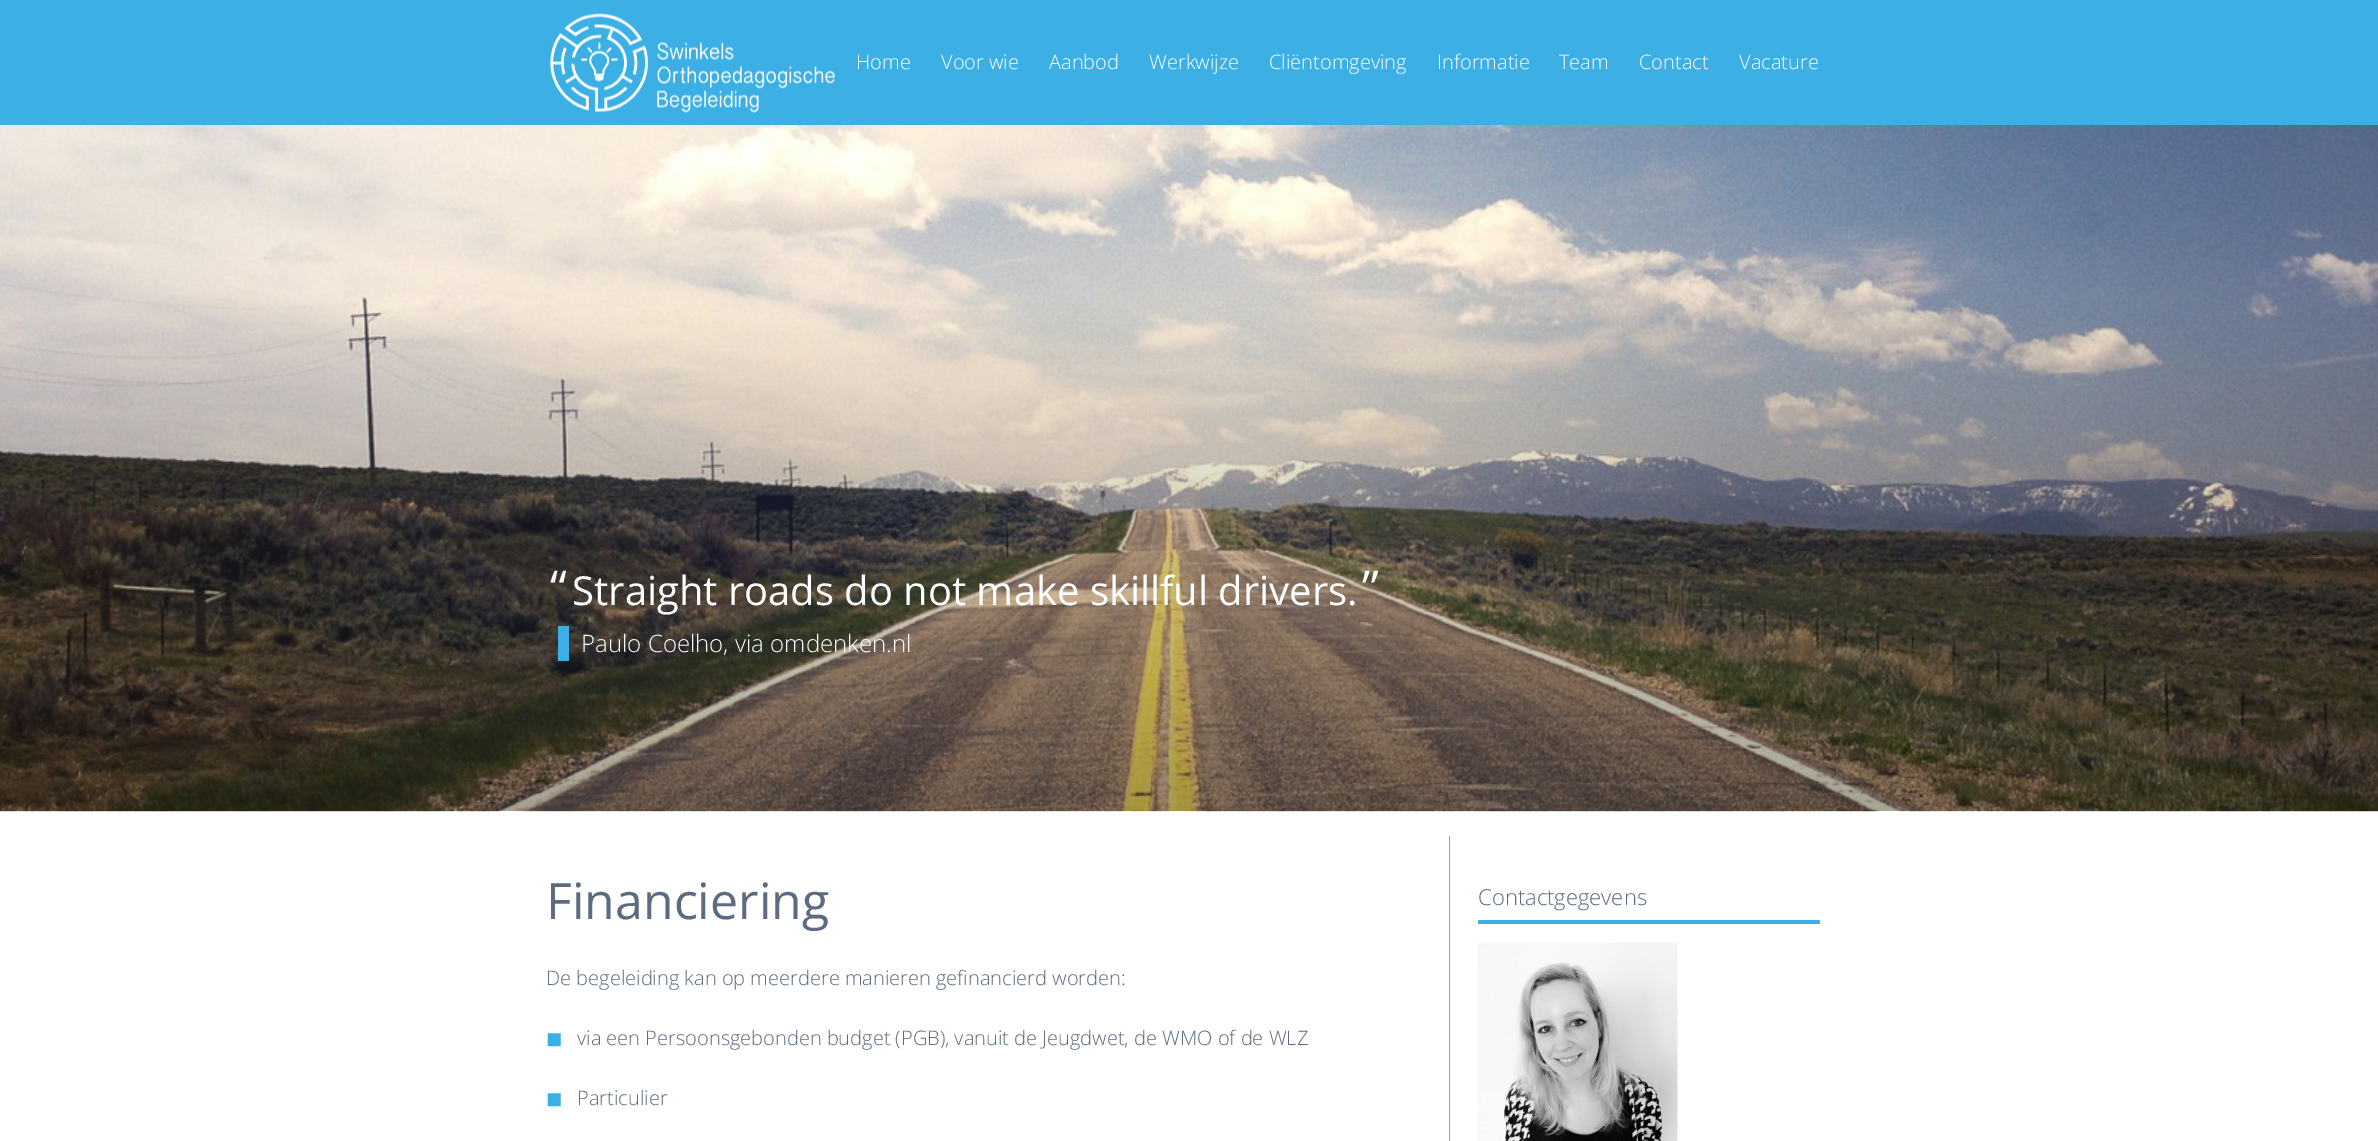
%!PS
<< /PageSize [2378 1141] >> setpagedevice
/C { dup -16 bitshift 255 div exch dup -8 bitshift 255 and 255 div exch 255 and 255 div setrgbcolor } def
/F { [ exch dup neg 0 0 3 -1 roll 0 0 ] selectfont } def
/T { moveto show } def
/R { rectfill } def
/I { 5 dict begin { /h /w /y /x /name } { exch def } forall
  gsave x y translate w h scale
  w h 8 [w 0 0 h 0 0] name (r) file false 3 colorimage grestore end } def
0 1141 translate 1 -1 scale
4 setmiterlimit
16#FFFFFF C
0 0 2378 1141 R
16#3CB0E5 C
0 0 2378 125 R
(1.rgb) 550 13 285 100 I
/OpenSans-Light 20 F
16#FFFFFF C
(Home) 856 69 T
(Voor wie) 941 69 T
(Aanbod) 1049 69 T
(Werkwijze) 1149 69 T
(Cliëntomgeving) 1269 69 T
(Informatie) 1437 69 T
(Team) 1559 69 T
(Contact) 1639 69 T
(Vacature) 1739 69 T
(2.rgb) 0 125 2378 687 I
/OpenSans-Regular 48 F
(“) 550 605 T
/OpenSans-Regular 40 F
(Straight roads do not make skillful drivers.) 572 605 T
/OpenSans-Regular 48 F
(”) 1362 605 T
16#3CB0E5 C
558 626 11 35 R
/OpenSans-Light 24 F
16#FFFFFF C
(Paulo Coelho, via omdenken.nl) 581 652 T
16#9AA1AD C
1449 836 1 305 R
/OpenSans-Regular 50 F
16#5C6B80 C
(Financiering) 546 919 T
/OpenSans-Light 20 F
(De begeleiding kan op meerdere manieren gefinancierd worden:) 546 985 T
/DejaVuSans-Regular 20 F
16#3CB0E5 C
(◼) 546 1045 T
/OpenSans-Light 20 F
16#5C6B80 C
(via een Persoonsgebonden budget \(PGB\), vanuit de Jeugdwet, de WMO of de WLZ) 577 1045 T
/DejaVuSans-Regular 20 F
16#3CB0E5 C
(◼) 546 1105 T
/OpenSans-Light 20 F
16#5C6B80 C
(Particulier) 577 1105 T
16#3CB0E5 C
1478 920 342 4 R
/OpenSans-Light 22 F
16#5C6B80 C
(Contactgegevens) 1478 905 T
(3.rgb) 1477 942 201 199 I
showpage
